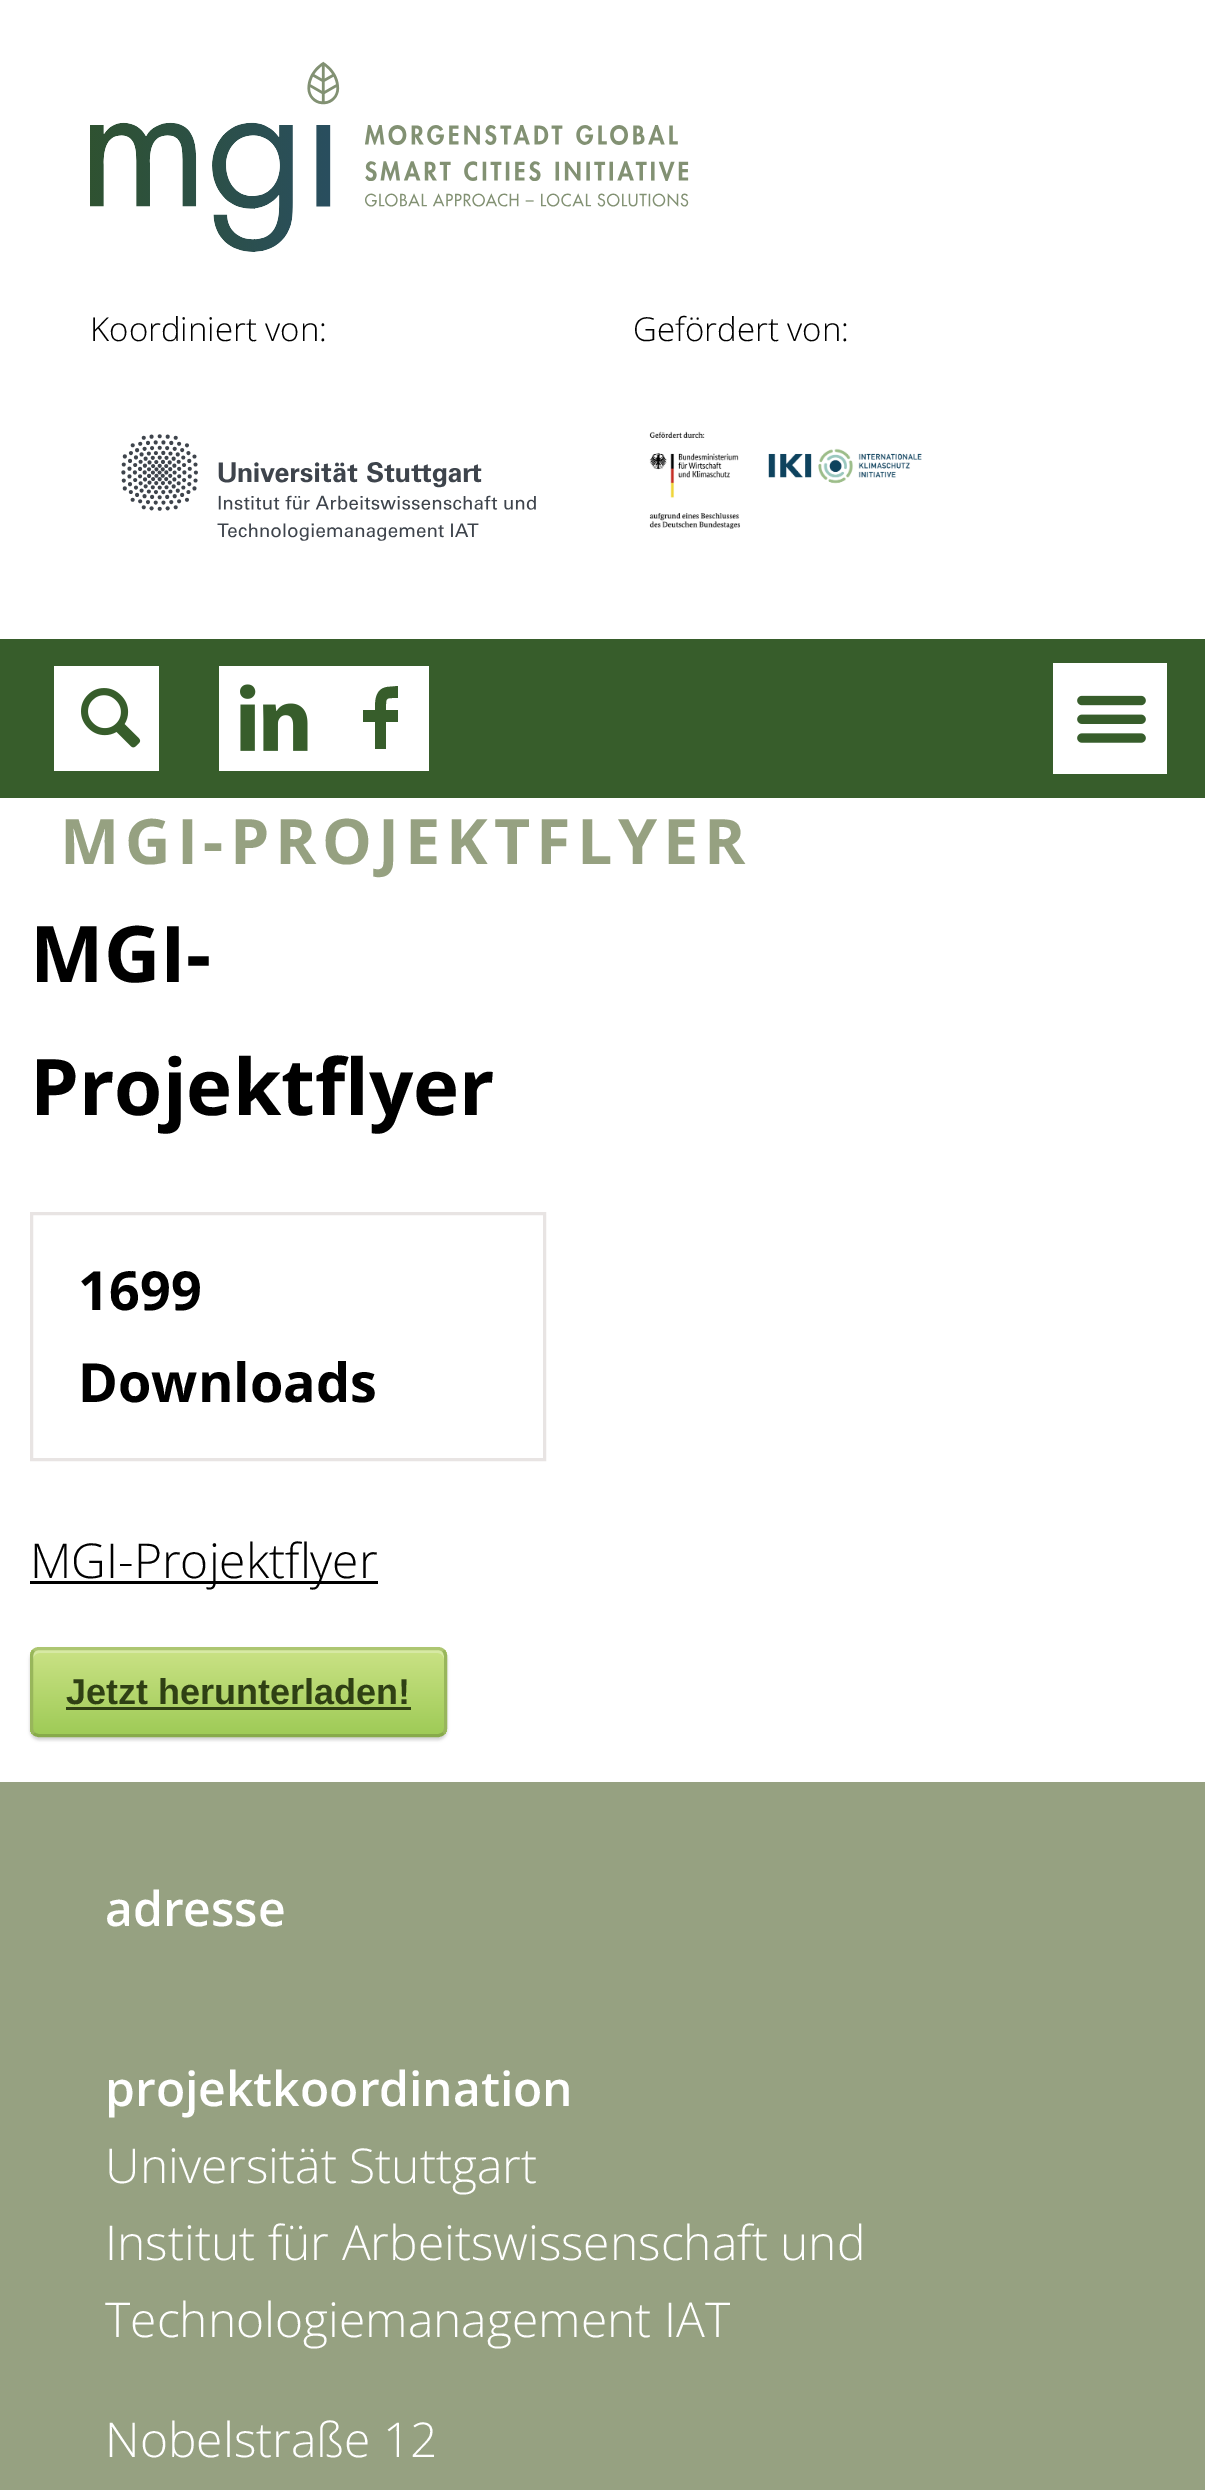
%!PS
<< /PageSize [1205 2490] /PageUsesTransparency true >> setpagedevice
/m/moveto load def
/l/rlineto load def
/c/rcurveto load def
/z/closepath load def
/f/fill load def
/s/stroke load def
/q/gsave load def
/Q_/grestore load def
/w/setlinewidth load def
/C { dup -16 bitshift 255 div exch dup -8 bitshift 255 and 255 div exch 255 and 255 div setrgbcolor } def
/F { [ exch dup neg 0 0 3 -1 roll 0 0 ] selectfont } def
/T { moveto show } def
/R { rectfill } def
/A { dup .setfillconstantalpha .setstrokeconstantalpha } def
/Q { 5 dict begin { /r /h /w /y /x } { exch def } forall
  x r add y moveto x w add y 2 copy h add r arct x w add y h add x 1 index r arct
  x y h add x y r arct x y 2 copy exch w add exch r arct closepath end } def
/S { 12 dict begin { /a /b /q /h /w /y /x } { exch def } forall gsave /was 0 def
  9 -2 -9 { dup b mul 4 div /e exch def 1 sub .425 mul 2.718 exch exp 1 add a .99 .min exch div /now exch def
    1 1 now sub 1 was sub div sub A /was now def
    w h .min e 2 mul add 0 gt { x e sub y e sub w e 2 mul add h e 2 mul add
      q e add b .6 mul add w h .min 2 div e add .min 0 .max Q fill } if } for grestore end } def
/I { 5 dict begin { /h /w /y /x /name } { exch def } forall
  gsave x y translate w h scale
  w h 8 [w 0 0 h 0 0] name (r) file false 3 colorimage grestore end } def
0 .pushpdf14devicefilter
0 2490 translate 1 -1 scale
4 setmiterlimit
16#FFFFFF C
0 0 1205 2490 R
(1.rgb) 90 61 599 191 I
/OpenSans-Light 33 F
16#000000 C
(Koordiniert von:) 90 341 T
(2.rgb) 121 434 415 107 I
(Gefördert von:) 633 341 T
(3.rgb) 649 431 273 98 I
16#375D2B C
0 639 1205 159 R
16#FFFFFF C
54 666 105 105 R
(4.rgb) 81 688 60 60 I
219 666 210 105 R
(5.rgb) 240 684 68 67 I
16#375D2B C
386 710 m 12 0 l 0 12 l -12 0 l 0 27 l -11 0 l 0 -27 l -12 0 l 0 -12 l 12 0 l 0 -9 0 -21 12 -23 c 11 -1 l 0 12 l -13 0 -12 -1 -12 12 c z f
16#FFFFFF C
1053 663 114 111 R
(6.rgb) 1077 695 69 48 I
/OpenSans-Bold 62.75 F
16#96A181 C
60 864 m 6 0 (MGI-PROJEKTFLYER) ashow
/OpenSans-Bold 78 F
16#000000 C
(MGI-) 30 982 T
(Projektflyer) 30 1115 T
16#E8E4E3 C
3 w
31.5 1213.5 513 246 rectstroke
/OpenSans-Bold 54 F
16#000000 C
(1699) 78 1310 T
(Downloads) 78 1402 T
30 1581 348 3 R
/OpenSans-Light 48 F
(MGI-Projektflyer) 30 1578 T
16#D3D3D3 C
30 1650 417 90 9 1.5 1 S
q
30 1647 417 90 9 Q clip newpath
q 30 1650 m 417 0 l 0 84 l -417 0 l z clip newpath
<< /ShadingType 2 /ColorSpace /DeviceRGB /Coords [33 1650 33 1734] /Extend [true true] /Function << /FunctionType 2 /Domain [0 1] /C0 [.792 .886 .522] /C1 [.624 .796 .341] /N 1 >> >> shfill Q_
Q_
16#D7E9A4 C
39 1653 m 399 0 l 3 0 6 3 6 6 c 0 -4 -1 -9 -6 -9 c -399 0 l -5 0 -6 5 -6 9 c 0 -3 3 -6 6 -6 c z f
16#ADC671 C
33.5 1650.5 m 1.5 -1 3.5 -2 5.5 -2 c 399 0 l 2 0 4 1 5.5 2 c s
16#98B65B C
443.5 1650.5 m 1 1.5 2 3.5 2 5.5 c 0 72 l 0 2 -1 4 -2 5.5 c s
16#87AA4A C
443.5 1733.5 m -1.5 1 -3.5 2 -5.5 2 c -399 0 l -2 0 -4 -1 -5.5 -2 c s
16#98B65B C
33.5 1733.5 m -1 -1.5 -2 -3.5 -2 -5.5 c 0 -72 l 0 -2 1 -4 2 -5.5 c s
/LiberationSans-Bold 36 F
16#2F4014 C
(Jetzt herunterladen!) 66 1704 T
66 1707 345 3 R
16#96A181 C
0 1782 1205 708 R
/OpenSans-SemiBold 48 F
16#FFFFFF C
(adresse) 105 1926 T
(projektkoordination) 105 2106 T
/OpenSans-Light 48 F
(Universität Stuttgart) 105 2183 T
(Institut für Arbeitswissenschaft und) 105 2260 T
(Technologiemanagement IAT) 105 2337 T
(Nobelstraße 12) 105 2457 T
.poppdf14devicefilter showpage
